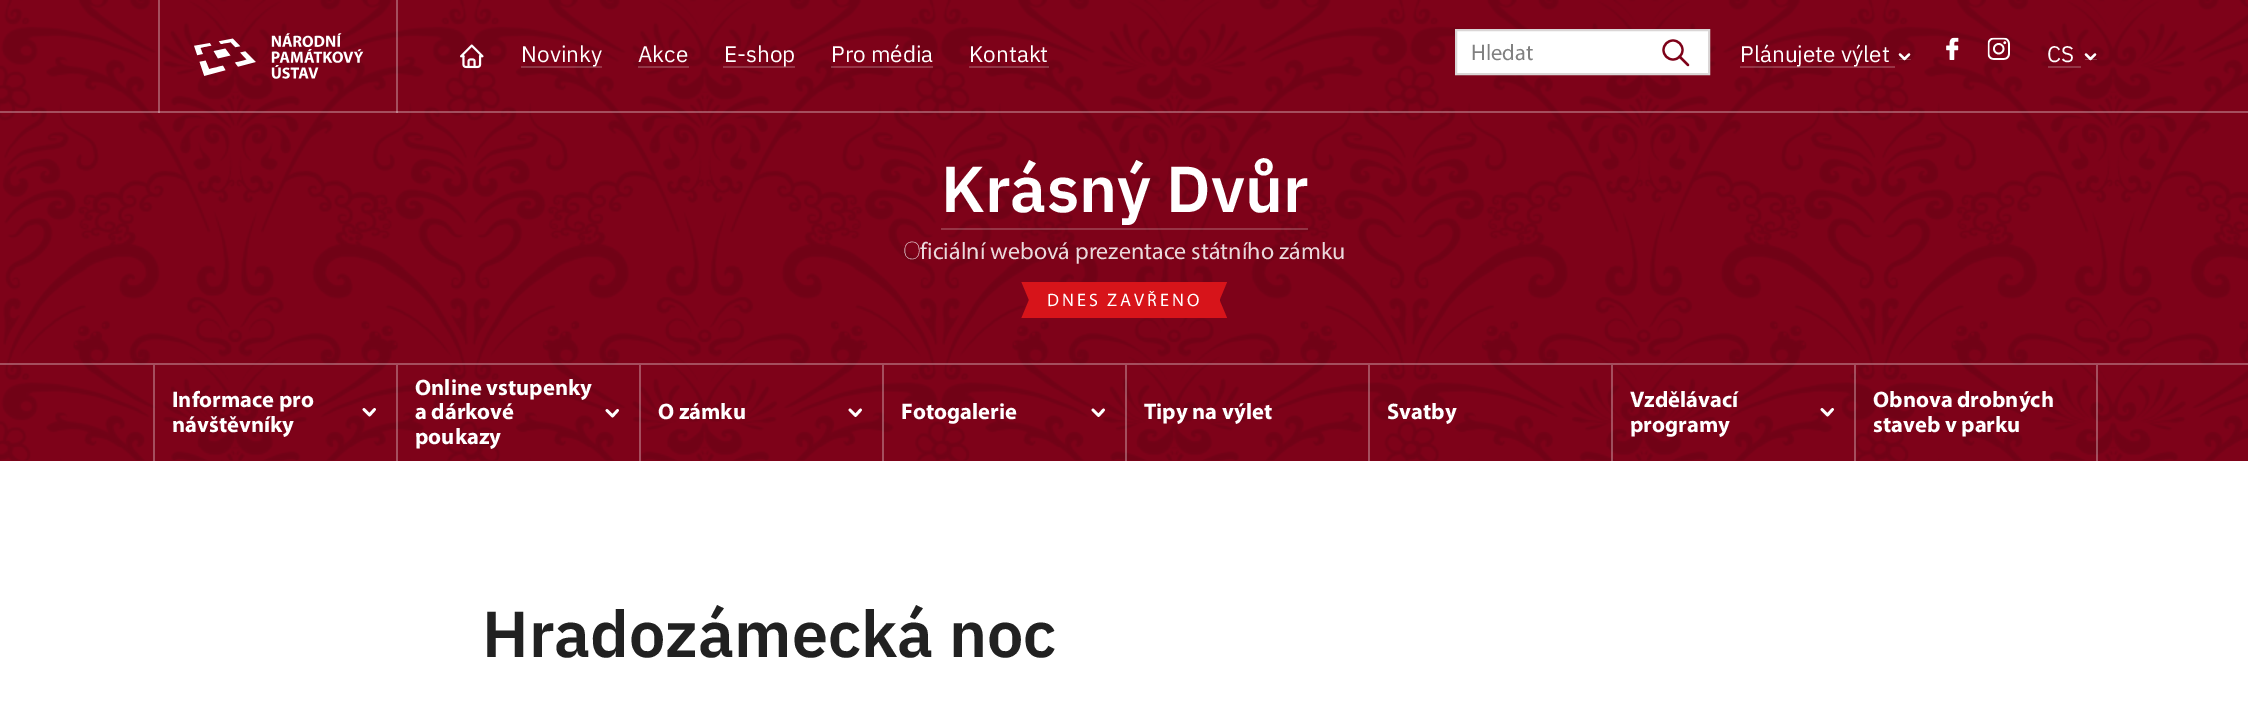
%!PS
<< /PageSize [2248 719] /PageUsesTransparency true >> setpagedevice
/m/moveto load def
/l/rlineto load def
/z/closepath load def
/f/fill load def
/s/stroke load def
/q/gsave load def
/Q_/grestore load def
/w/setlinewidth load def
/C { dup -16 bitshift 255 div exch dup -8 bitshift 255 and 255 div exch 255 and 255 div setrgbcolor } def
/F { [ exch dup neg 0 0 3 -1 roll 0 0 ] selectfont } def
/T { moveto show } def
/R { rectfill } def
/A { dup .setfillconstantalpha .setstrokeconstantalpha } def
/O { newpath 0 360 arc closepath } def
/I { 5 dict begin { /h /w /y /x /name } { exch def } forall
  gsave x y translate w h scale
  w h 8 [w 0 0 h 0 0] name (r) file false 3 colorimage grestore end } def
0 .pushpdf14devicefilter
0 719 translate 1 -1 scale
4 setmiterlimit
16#FFFFFF C
0 0 2248 719 R
16#7E0219 C
0 0 2248 461 R
(1.rgb) 0 0 2248 113 I
0.3 A
16#FFFFFF C
0 111 2248 2 R
396 0 2 113 R
158 0 2 113 R
1 A
(2.rgb) 194 33 170 46 I
(3.rgb) 460 44 24 25 I
0.2 A
521 66 81 2 R
/IBMPlexSans-Regular 22.5 F
1 A
(Novinky) 521 62 T
(Akce) 638 62 T
0.2 A
638 66 51 2 R
723 66 72 2 R
1 A
(E-shop) 724 62 T
(Pro média) 831 62 T
0.2 A
831 66 102 2 R
1 A
(Kontakt) 969 62 T
0.2 A
969 66 80 2 R
1 A
1456 30 m 253 0 l 0 44 l -253 0 l z q f Q_
16#DAD6D6 C
2 w
s
/Myriad-Regular 22.5 F
16#808080 C
(Hledat) 1471 60 T
16#7E0219 C
2.2 w
1673 50 9.5 O s
1 setlinecap
1 setlinejoin
1688 65 m -8.5 -8.5 l s
0.2 A
16#FFFFFF C
1740 66 155 2 R
/IBMPlexSans-Regular 22.5 F
1 A
(Plánujete výlet) 1740 62 T
16#8E3445 C
1899 59 12 1 R
16#FFFFFF C
1909 54.5 m -4.5 4.5 l -4.5 -4.5 l s
(4.rgb) 1946 37 13 23 I
(5.rgb) 1987 37 23 23 I
(CS) 2047 62 T
0.2 A
2048 66 33 2 R
2085 59 12 1 R
1 A
2095 54.5 m -4.5 4.5 l -4.5 -4.5 l s
(6.rgb) 0 113 2248 348 I
0.3 A
0 363 2248 2 R
/IBMPlexSans-SemiBold 64.75 F
1 A
(Krásný Dvůr) 941 212 T
0.2 A
941 228 367 2 R
/NotoSans-Thin 24 F
1 A
16#EBD9DC C
(O) 903 259 T
/Myriad-Regular 24 F
(ficiální webová prezentace státního zámku) 920 259 T
16#D7141A C
1037 282 175 36 R
1021.5 282 m 15 0 l -7.5 18 l z f
1029 282 8 36 R
1036.5 318 m -15 0 l 7.5 -18 l z f
/Myriad-Regular 18 F
16#FFFFFF C
1047 306 m 3 0 (DNES ZAVŘENO) ashow
16#D7141A C
1212 282 m 15 0 l -7.5 18 l z 1227 318 m -15 0 l 7.5 -18 l z f
1212 282 8 36 R
0.3 A
16#FFFFFF C
153 365 2 96 R
/Myriad-Bold 22.5 F
1 A
(Informace pro) 172 407 T
2.7 w
374.5 409.5 m -5 5.5 l -5.5 -5.5 l s
(návštěvníky) 172 432 T
0.3 A
396 365 2 96 R
1 A
(Online vstupenky) 415 395 T
(a dárkové) 415 419 T
617.5 410.5 m -5 5.5 l -5.5 -5.5 l s
(poukazy) 415 444 T
0.3 A
639 365 2 96 R
1 A
(O zámku) 658 419 T
860.5 410 m -5 5.5 l -5.5 -5.5 l s
0.3 A
882 365 2 96 R
1 A
(Fotogalerie) 901 419 T
1103.5 410 m -5 5.5 l -5.5 -5.5 l s
0.3 A
1125 365 2 96 R
1 A
(Tipy na výlet) 1144 419 T
0.3 A
1368 365 2 96 R
1 A
(Svatby) 1387 419 T
0.3 A
1611 365 2 96 R
1 A
(Vzdělávací) 1630 407 T
1832.5 409.5 m -5 5.5 l -5.5 -5.5 l s
(programy) 1630 432 T
0.3 A
2096 365 2 96 R
1854 365 2 96 R
1 A
(Obnova drobných) 1873 407 T
(staveb v parku) 1873 432 T
/IBMPlexSans-SemiBold 64.75 F
16#212121 C
(Hradozámecká noc) 482 657 T
.poppdf14devicefilter showpage
